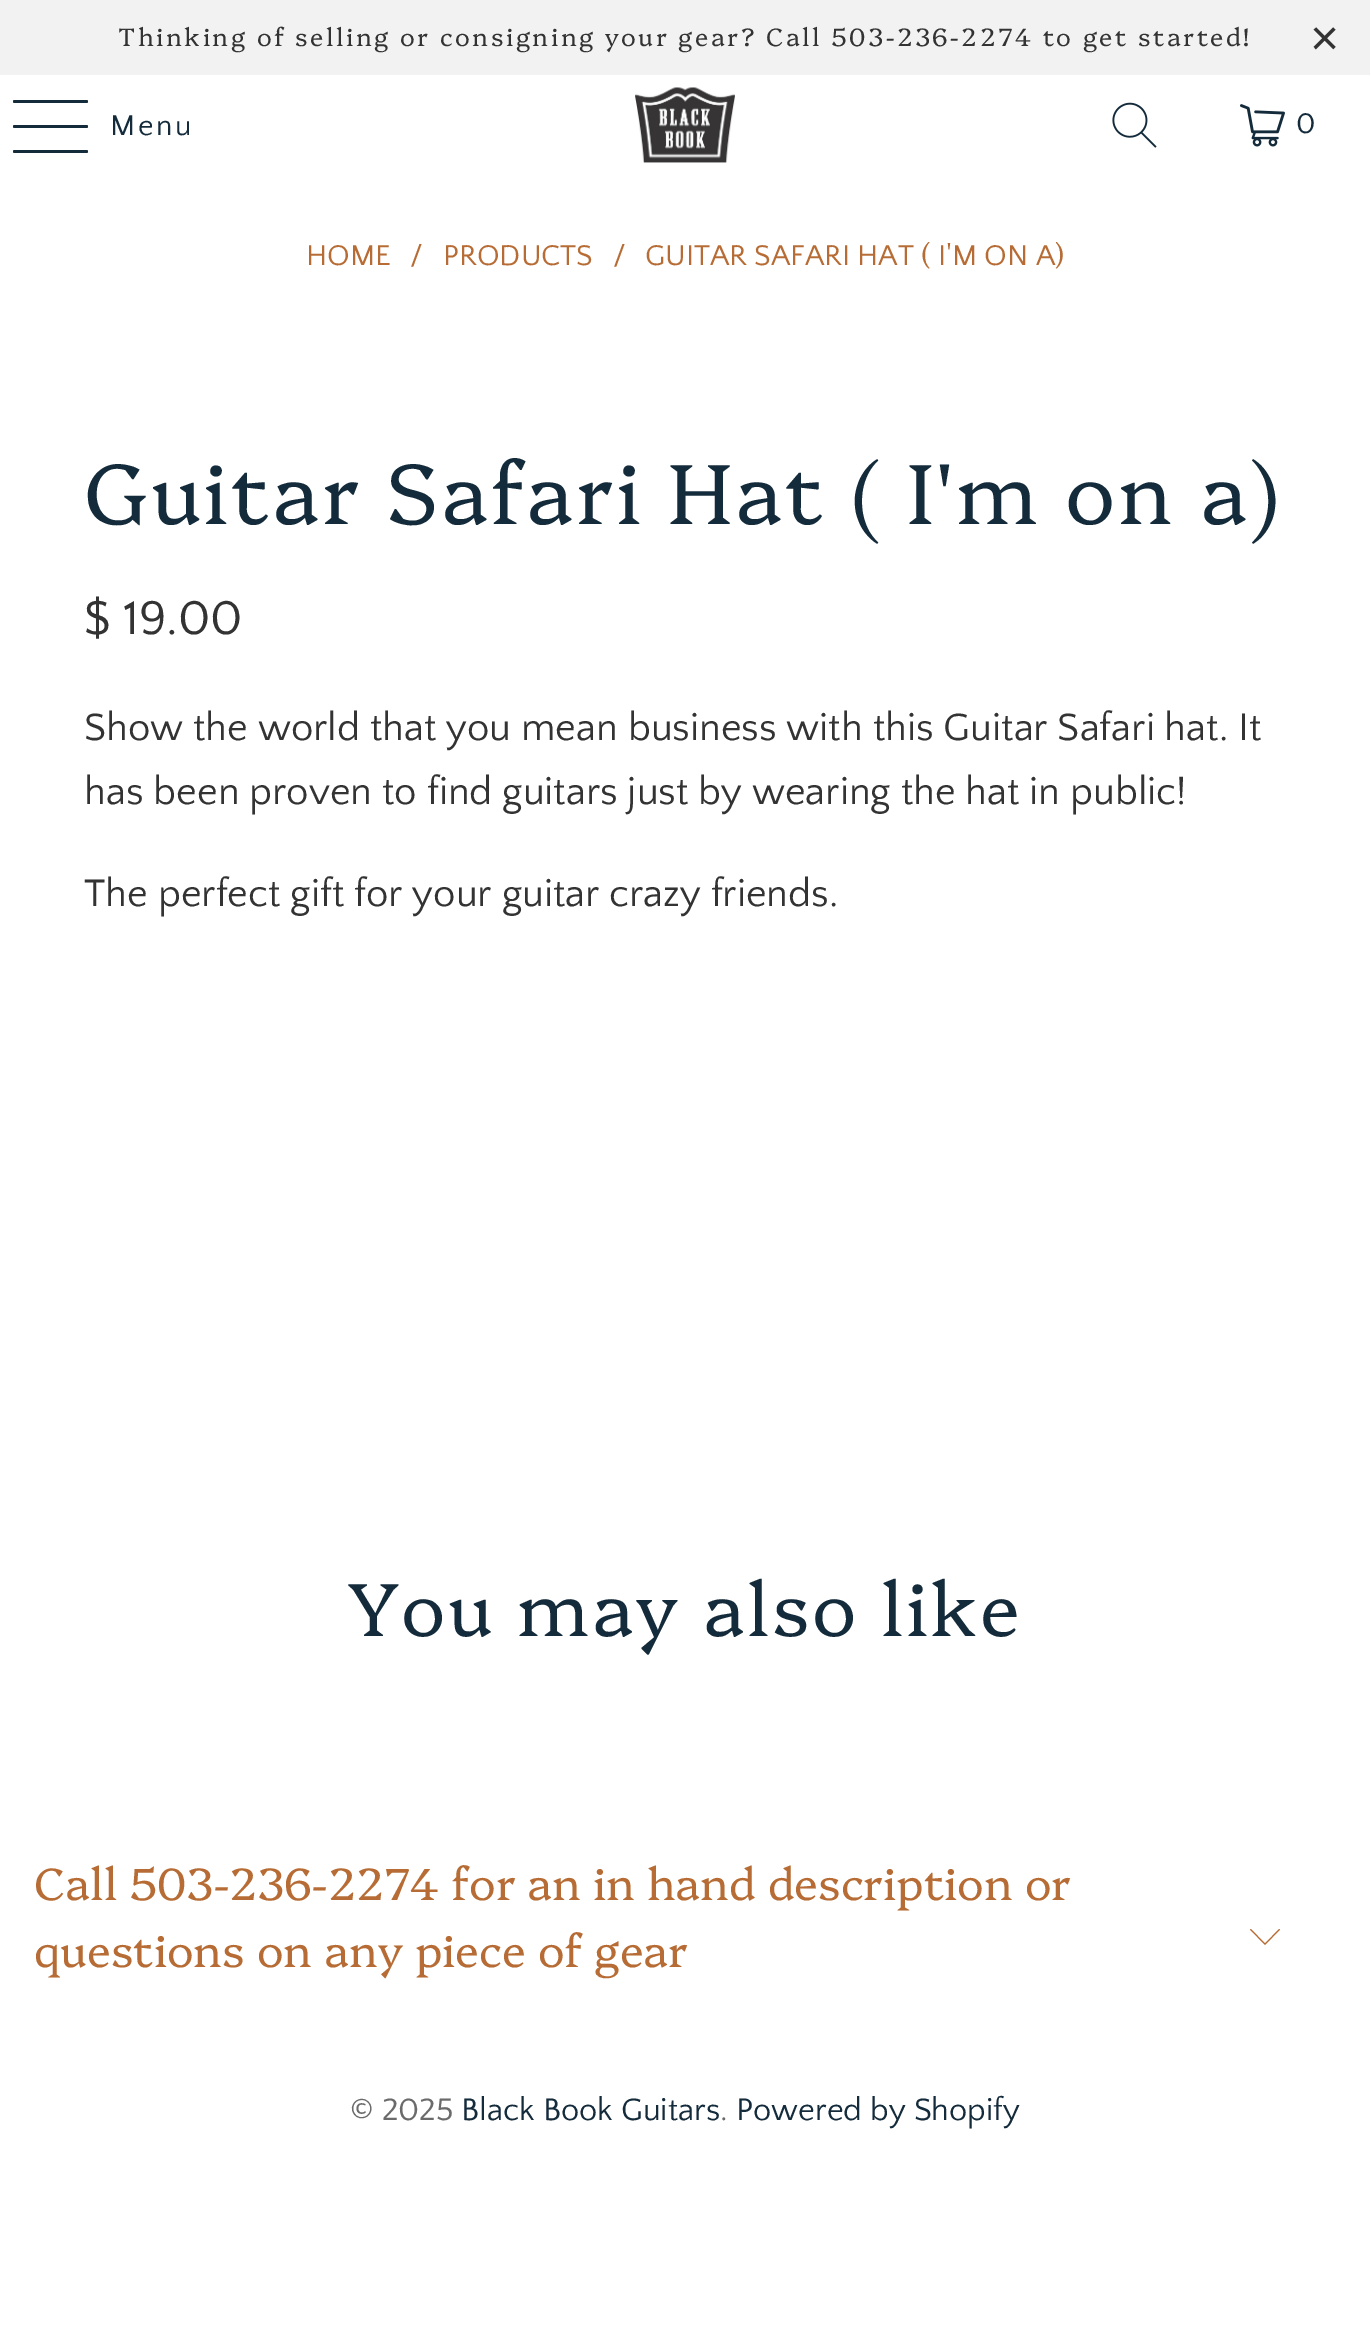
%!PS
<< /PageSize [1370 2335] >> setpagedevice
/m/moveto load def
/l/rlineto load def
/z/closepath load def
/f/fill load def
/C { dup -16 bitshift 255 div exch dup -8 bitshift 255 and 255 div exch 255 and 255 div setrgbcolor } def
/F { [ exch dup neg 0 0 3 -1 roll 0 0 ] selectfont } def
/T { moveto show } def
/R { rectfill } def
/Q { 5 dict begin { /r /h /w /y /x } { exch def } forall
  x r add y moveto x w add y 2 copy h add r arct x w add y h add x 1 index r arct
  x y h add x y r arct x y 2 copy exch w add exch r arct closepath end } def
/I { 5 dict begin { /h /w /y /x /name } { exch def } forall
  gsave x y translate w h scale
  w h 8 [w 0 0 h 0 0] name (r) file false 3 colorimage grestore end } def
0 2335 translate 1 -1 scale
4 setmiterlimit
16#FFFFFF C
0 0 1370 2335 R
16#F2F2F2 C
0 0 1370 75 R
/Platypi-Light 25 F
16#333333 C
118 46 m 2.5 0 (Thinking of selling or consigning your gear? Call 503-236-2274 to get started!) ashow
/LiberationSans-Regular 50 F
1310 55 m 2.5 0 (×) ashow
16#142B3B C
13 100 75 3 1.5 Q f
13 125 75 3 1.5 Q f
13 150 75 3 1.5 Q f
/QuattrocentoSans-Regular 30 F
110 135 m 2.5 0 (Menu) ashow
(1.rgb) 635 87 100 76 I
(2.rgb) 1112 102 45 46 I
(3.rgb) 1240 104 45 43 I
1296 133 m 2.5 0 (0) ashow
16#B66C34 C
(HOME) 306 265 T
(/) 410 265 T
(PRODUCTS) 443 265 T
(/) 613 265 T
(GUITAR SAFARI HAT \( I'M ON A\)) 645 265 T
/Platypi-Light 85 F
16#142B3B C
84 524 m 2.5 0 (Guitar Safari Hat \( I'm on a\)) ashow
/QuattrocentoSans-Regular 50 F
16#333333 C
($ 19.00) 84 634 T
/QuattrocentoSans-Regular 40 F
(Show the world that you mean business with this Guitar Safari hat. It) 84 740 T
(has been proven to find guitars just by wearing the hat in public!) 84 804 T
(The perfect gift for your guitar crazy friends.) 84 906 T
/Platypi-Light 75 F
16#142B3B C
348 1636 m 2.5 0 (You may also like) ashow
/Platypi-Light 45 F
16#B66C34 C
(Call 503-236-2274 for an in hand description or) 34 1900 T
(questions on any piece of gear) 34 1967 T
1265 1945 m -15 -15.5 l 1 -.5 l 14 14.5 l 14 -14.5 l 1 .5 l z f
/QuattrocentoSans-Regular 32.5 F
16#6B6B6B C
(© 2025) 350 2120 T
16#142B3B C
(Black Book Guitars) 461 2120 T
16#6B6B6B C
(.) 720 2120 T
16#142B3B C
(Powered by Shopify) 736 2120 T
showpage
